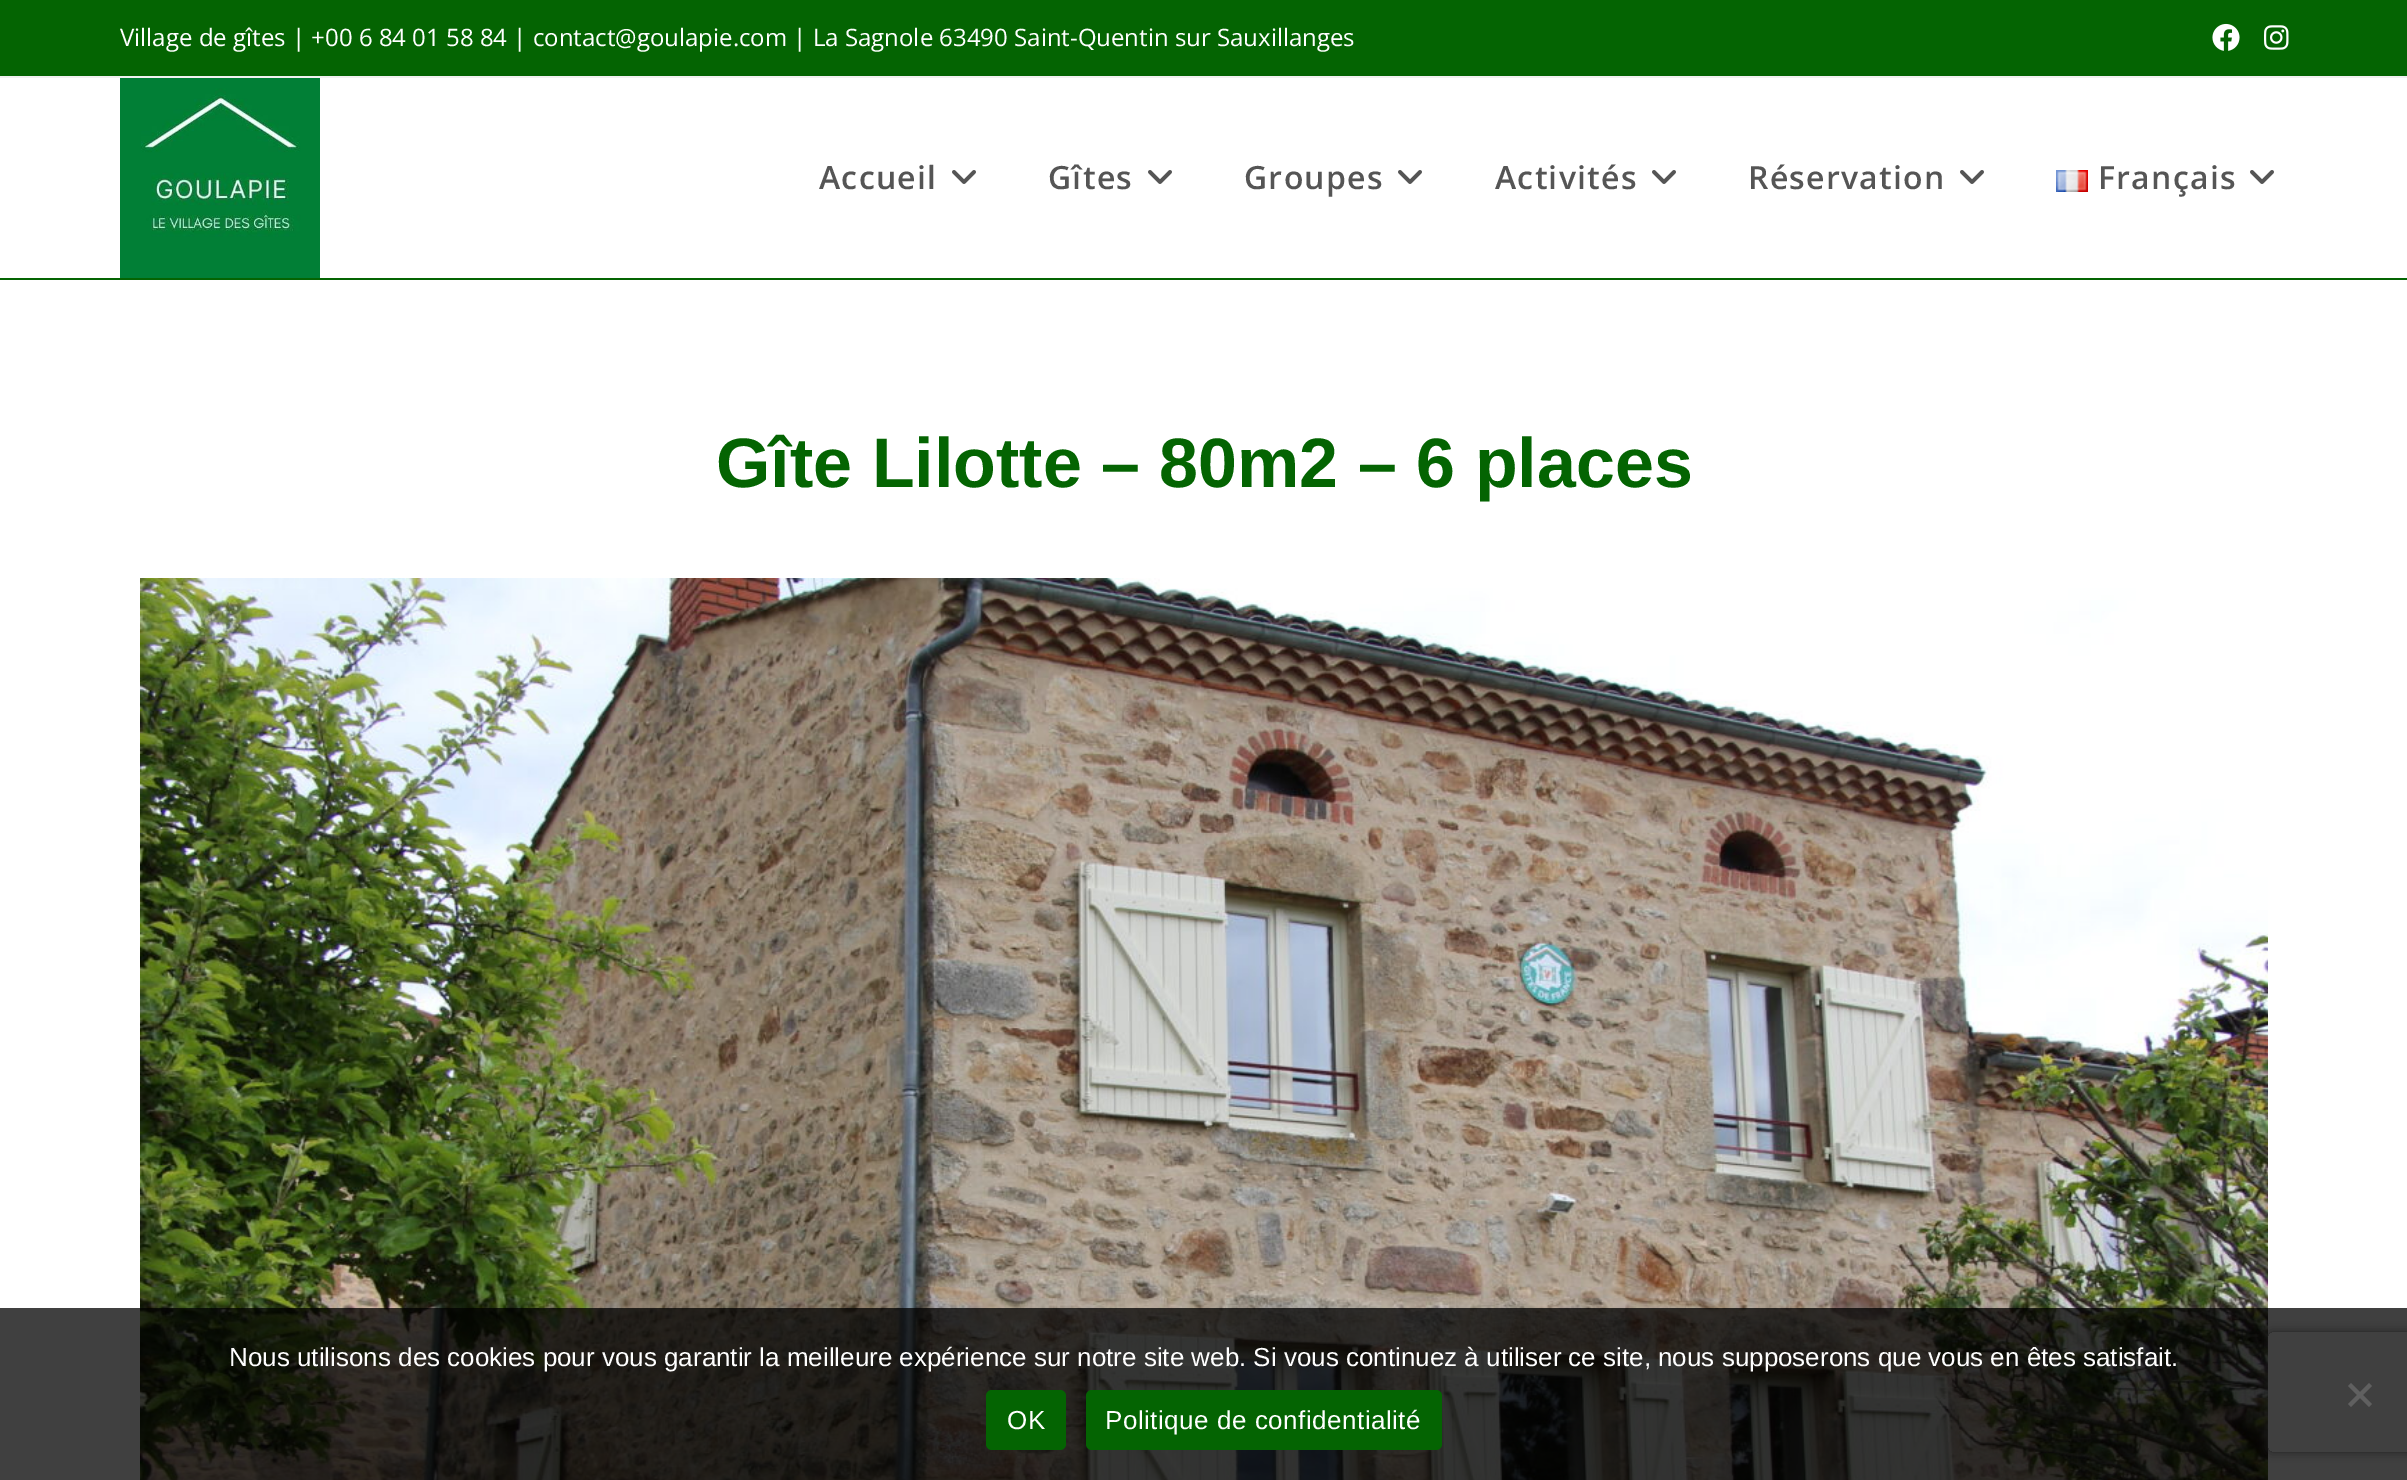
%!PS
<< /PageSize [2407 1480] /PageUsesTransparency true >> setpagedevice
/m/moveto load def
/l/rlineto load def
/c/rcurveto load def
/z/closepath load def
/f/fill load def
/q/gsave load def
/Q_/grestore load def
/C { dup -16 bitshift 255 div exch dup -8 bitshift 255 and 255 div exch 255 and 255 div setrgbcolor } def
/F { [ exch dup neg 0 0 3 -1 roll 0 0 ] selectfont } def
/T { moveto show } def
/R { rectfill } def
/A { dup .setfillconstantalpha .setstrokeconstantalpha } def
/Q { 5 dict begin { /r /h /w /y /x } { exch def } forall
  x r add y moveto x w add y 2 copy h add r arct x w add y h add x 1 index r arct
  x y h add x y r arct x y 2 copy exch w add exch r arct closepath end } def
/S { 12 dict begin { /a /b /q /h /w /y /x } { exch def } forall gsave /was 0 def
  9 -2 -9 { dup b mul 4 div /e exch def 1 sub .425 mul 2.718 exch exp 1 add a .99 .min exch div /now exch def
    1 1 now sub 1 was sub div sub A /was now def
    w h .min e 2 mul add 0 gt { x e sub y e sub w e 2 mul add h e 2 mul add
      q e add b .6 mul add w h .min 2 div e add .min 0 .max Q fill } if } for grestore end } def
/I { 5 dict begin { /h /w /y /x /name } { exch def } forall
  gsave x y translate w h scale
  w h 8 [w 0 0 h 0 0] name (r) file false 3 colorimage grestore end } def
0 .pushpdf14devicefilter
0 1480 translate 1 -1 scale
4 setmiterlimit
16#FFFFFF C
0 0 2407 1480 R
16#046402 C
0 0 2407 76 R
16#F1F1F1 C
0 76 2407 2 R
/OpenSans-Regular 24 F
16#FFFFFF C
(Village de gîtes | +00 6 84 01 58 84 | contact@goulapie.com | La Sagnole 63490 Saint-Quentin sur Sauxillanges) 120 46 T
(1.rgb) 2212 23 28 28 I
(2.rgb) 2264 25 25 25 I
16#046402 C
0 278 2407 2 R
(3.rgb) 120 78 200 200 I
/OpenSans-SemiBold 32 F
16#555555 C
819 189 m 1.25 0 (Accueil) ashow
(4.rgb) 952 170 24 14 I
1048 189 m 1.25 0 (Gîtes) ashow
(4.rgb) 1148 170 24 14 I
1244 189 m 1.25 0 (Groupes) ashow
(4.rgb) 1398 170 24 14 I
1495 189 m 1.25 0 (Activités) ashow
(4.rgb) 1652 170 24 14 I
1748 189 m 1.25 0 (Réservation) ashow
(4.rgb) 1960 170 24 14 I
(5.rgb) 2056 170 32 22 I
2098 189 m 1.25 0 (Français) ashow
(4.rgb) 2250 170 24 14 I
/LiberationSans-Bold 70 F
16#046402 C
(Gîte Lilotte – 80m2 – 6 places) 716 487 T
(6.rgb) 140 578 2128 902 I
q
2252 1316 m 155 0 l 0 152 l -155 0 l z 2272 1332 m 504 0 l 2 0 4 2 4 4 c 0 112 l 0 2 -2 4 -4 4 c -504 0 l -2 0 -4 -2 -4 -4 c 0 -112 l 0 -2 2 -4 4 -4 c z eoclip newpath
16#808080 C
2268 1332 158 120 4 5 1 S
Q_
0.75 A
16#000000 C
0 1308 2407 172 R
/LiberationSans-Regular 26 F
1 A
16#FFFFFF C
(Nous utilisons des cookies pour vous garantir la meilleure expérience sur notre site web. Si vous continuez à utiliser ce site, nous supposerons que vous en êtes satisfait.) 229 1366 T
16#606060 C
2369 1383 m 3 3 l -21 21 l -3 -3 l z f
2348 1386 m 3 -3 l 21 21 l -3 3 l z f
16#046402 C
986 1390 80 60 6 Q f
16#FFFFFF C
1007 1429 m .5 0 (OK) ashow
16#046402 C
1086 1390 356 60 6 Q f
16#FFFFFF C
1105 1429 m .5 0 (Politique de confidentialité) ashow
.poppdf14devicefilter showpage
